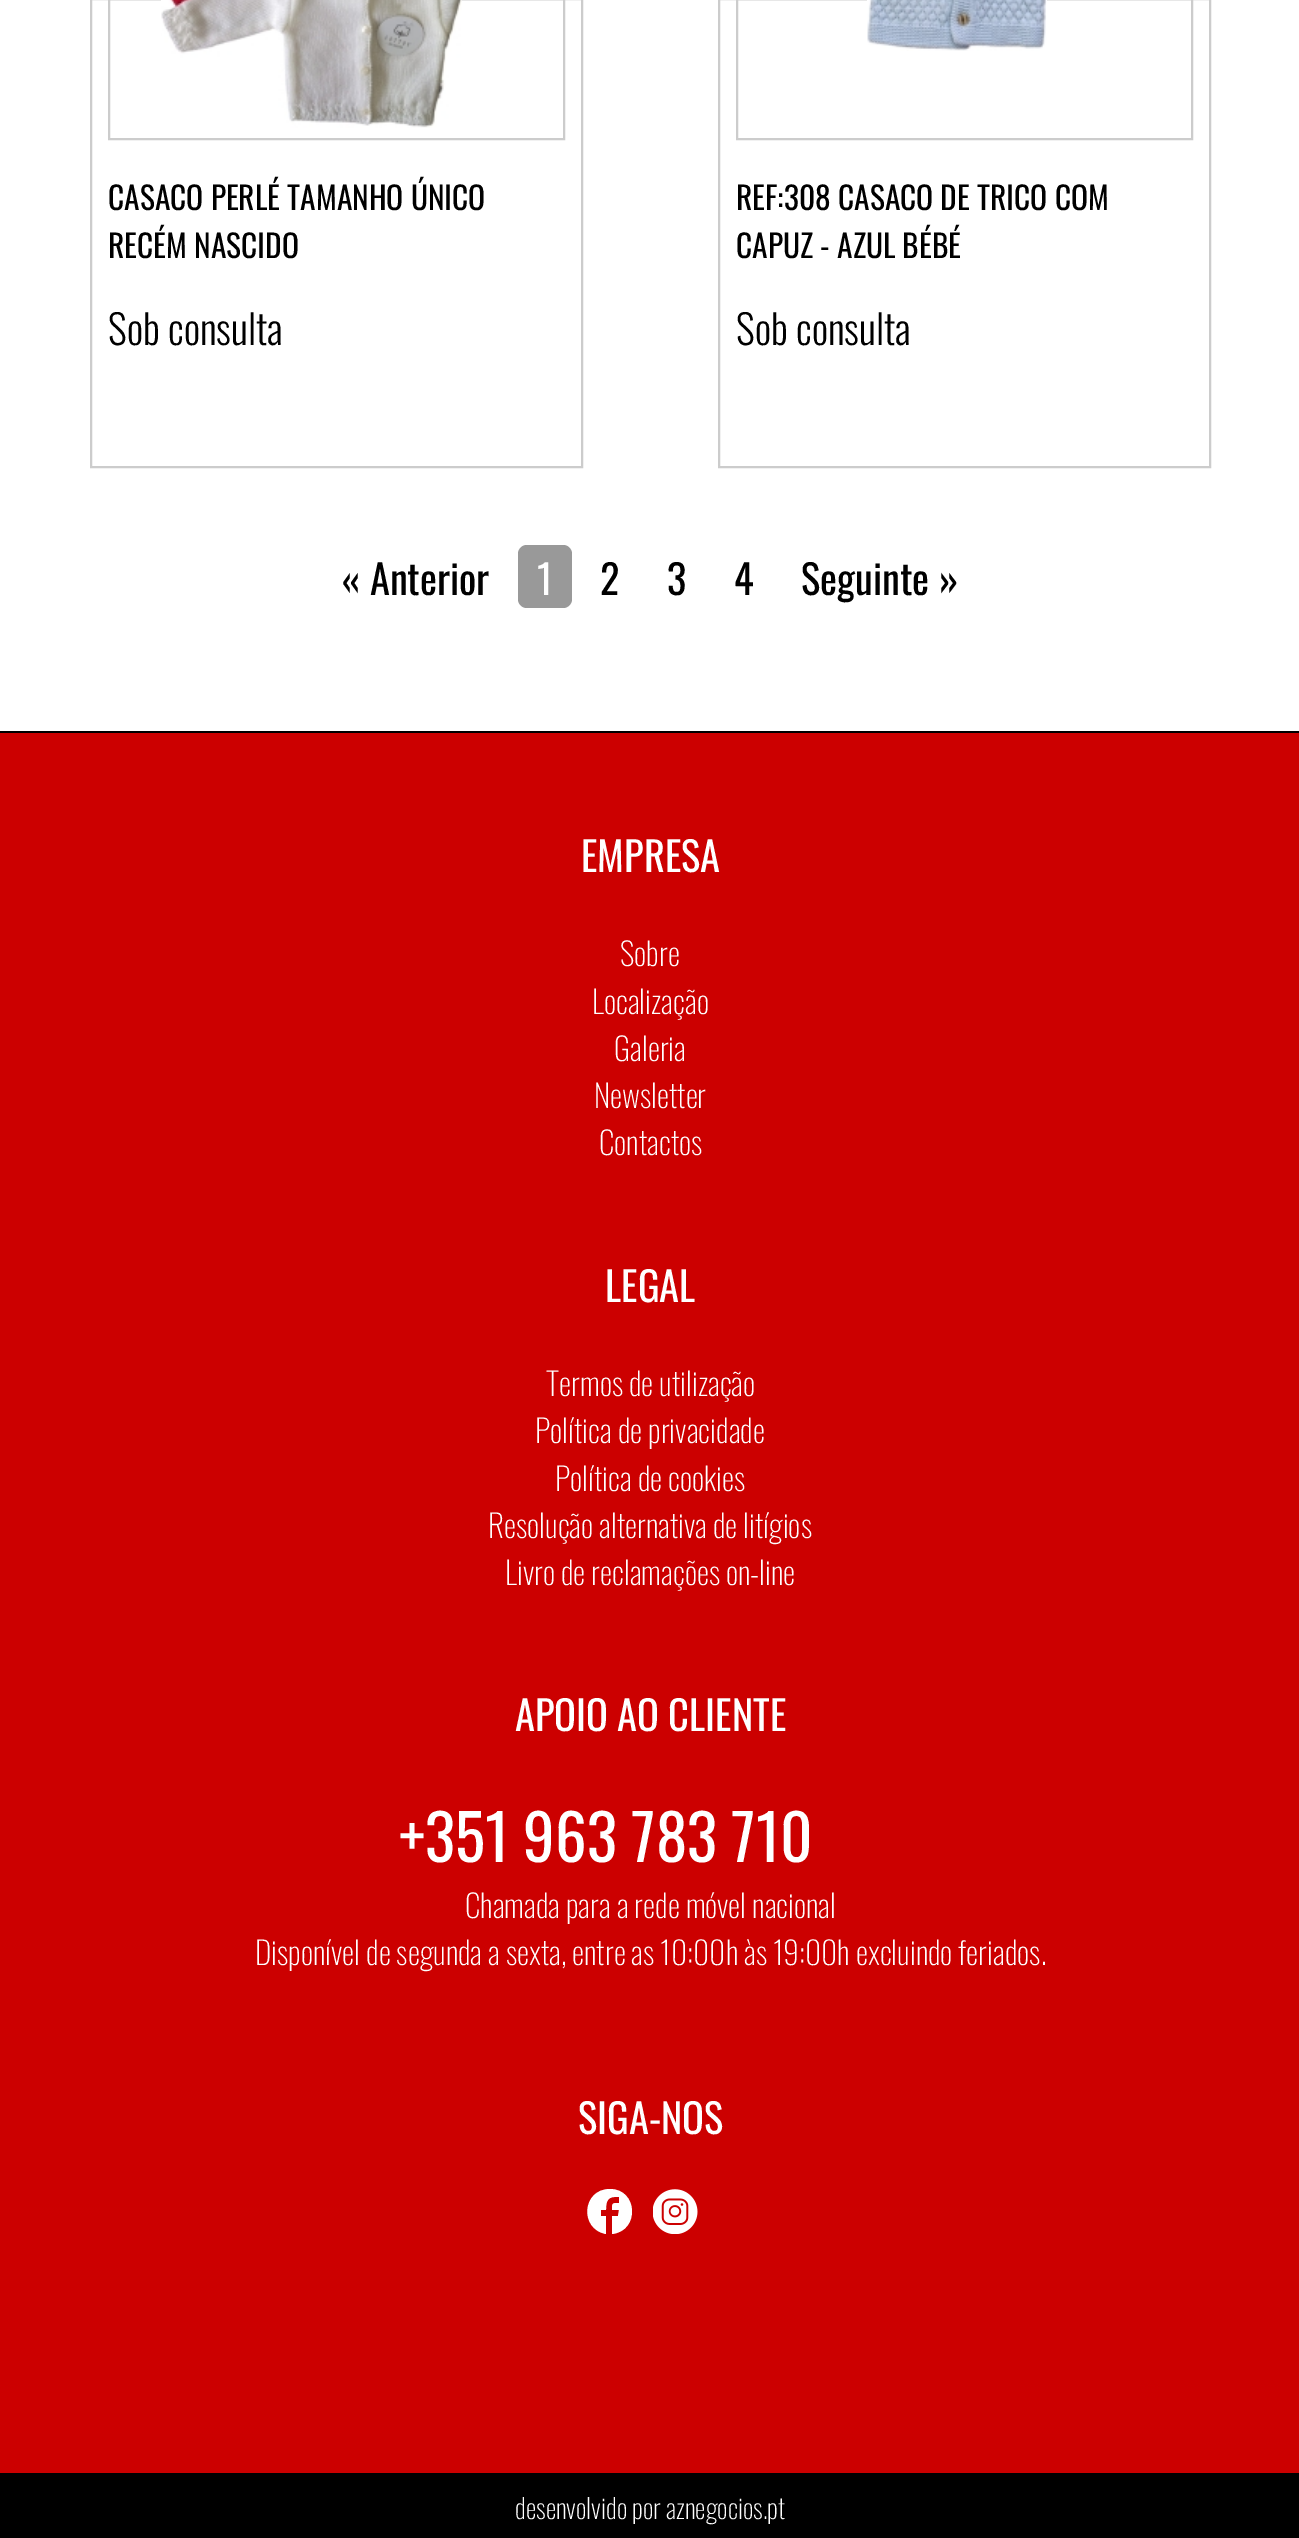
%!PS
<< /PageSize [1299 2538] >> setpagedevice
/m/moveto load def
/l/rlineto load def
/c/rcurveto load def
/z/closepath load def
/f/fill load def
/w/setlinewidth load def
/C { dup -16 bitshift 255 div exch dup -8 bitshift 255 and 255 div exch 255 and 255 div setrgbcolor } def
/F { [ exch dup neg 0 0 3 -1 roll 0 0 ] selectfont } def
/T { moveto show } def
/R { rectfill } def
/Q { 5 dict begin { /r /h /w /y /x } { exch def } forall
  x r add y moveto x w add y 2 copy h add r arct x w add y h add x 1 index r arct
  x y h add x y r arct x y 2 copy exch w add exch r arct closepath end } def
/I { 5 dict begin { /h /w /y /x /name } { exch def } forall
  gsave x y translate w h scale
  w h 8 [w 0 0 h 0 0] name (r) file false 3 colorimage grestore end } def
0 2538 translate 1 -1 scale
4 setmiterlimit
16#FFFFFF C
0 0 1299 2538 R
16#CCCCCC C
2 w
91 -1 491 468 rectstroke
109 -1 455 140 rectstroke
(1.rgb) 161 0 301 128 I
/Oswald-Regular 31.5 F
16#000000 C
(CASACO PERLÉ TAMANHO ÚNICO) 108 210 T
(RECÉM NASCIDO) 108 258 T
/Oswald-Light 40.5 F
(Sob consulta) 108 345 T
16#CCCCCC C
719 -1 491 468 rectstroke
737 -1 455 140 rectstroke
(2.rgb) 867 0 180 51 I
/Oswald-Regular 31.5 F
16#000000 C
(REF:308 CASACO DE TRICO COM) 736 210 T
(CAPUZ - AZUL BÉBÉ) 736 258 T
/Oswald-Light 40.5 F
(Sob consulta) 736 345 T
/Oswald-Regular 40.5 F
(« Anterior) 342 595 T
16#999999 C
518 545 54 63 9 Q f
16#FFFFFF C
(1) 537 595 T
16#000000 C
(2) 600 595 T
(3) 667 595 T
(4) 734 595 T
(Seguinte ») 801 595 T
16#CC0000 C
0 733 1299 1740 R
16#000000 C
0 731 1299 2 R
16#FFFFFF C
(EMPRESA) 581 872 T
/Oswald-ExtraLight 31.5 F
(Sobre) 620 966 T
(Localização) 592 1014 T
(Galeria) 614 1061 T
(Newsletter) 594 1108 T
(Contactos) 599 1155 T
/Oswald-Regular 40.5 F
(LEGAL) 605 1302 T
/Oswald-ExtraLight 31.5 F
(Termos de utilização) 546 1396 T
(Política de privacidade) 535 1443 T
(Política de cookies) 555 1491 T
(Resolução alternativa de litígios) 488 1538 T
(Livro de reclamações on-line) 505 1585 T
/Oswald-Regular 40.5 F
(APOIO AO CLIENTE) 515 1731 T
/Oswald-Regular 63 F
(+351 963 783 710) 399 1862 T
/Oswald-ExtraLight 31.5 F
(Chamada para a rede móvel nacional) 465 1918 T
(Disponível de segunda a sexta, entre as 10:00h às 19:00h excluindo feriados.) 255 1965 T
/Oswald-Regular 40.5 F
(SIGA-NOS) 578 2134 T
610 2189 m -28 0 -31 40 -4 45 c 0 -18 l -5 0 l 0 -6 l 5 0 l 0 -10 2 -14 13 -13 c 0 6 l -7 0 -7 0 -7 7 c 7 0 l -1 6 l -6 0 l 0 18 l 28 -3 26 -45 -2 -45 c z eofill
(3.rgb) 653 2189 45 45 I
16#000000 C
0 2473 1299 65 R
/Oswald-ExtraLight 27 F
16#FFFFFF C
(desenvolvido por aznegocios.pt) 515 2519 T
showpage
